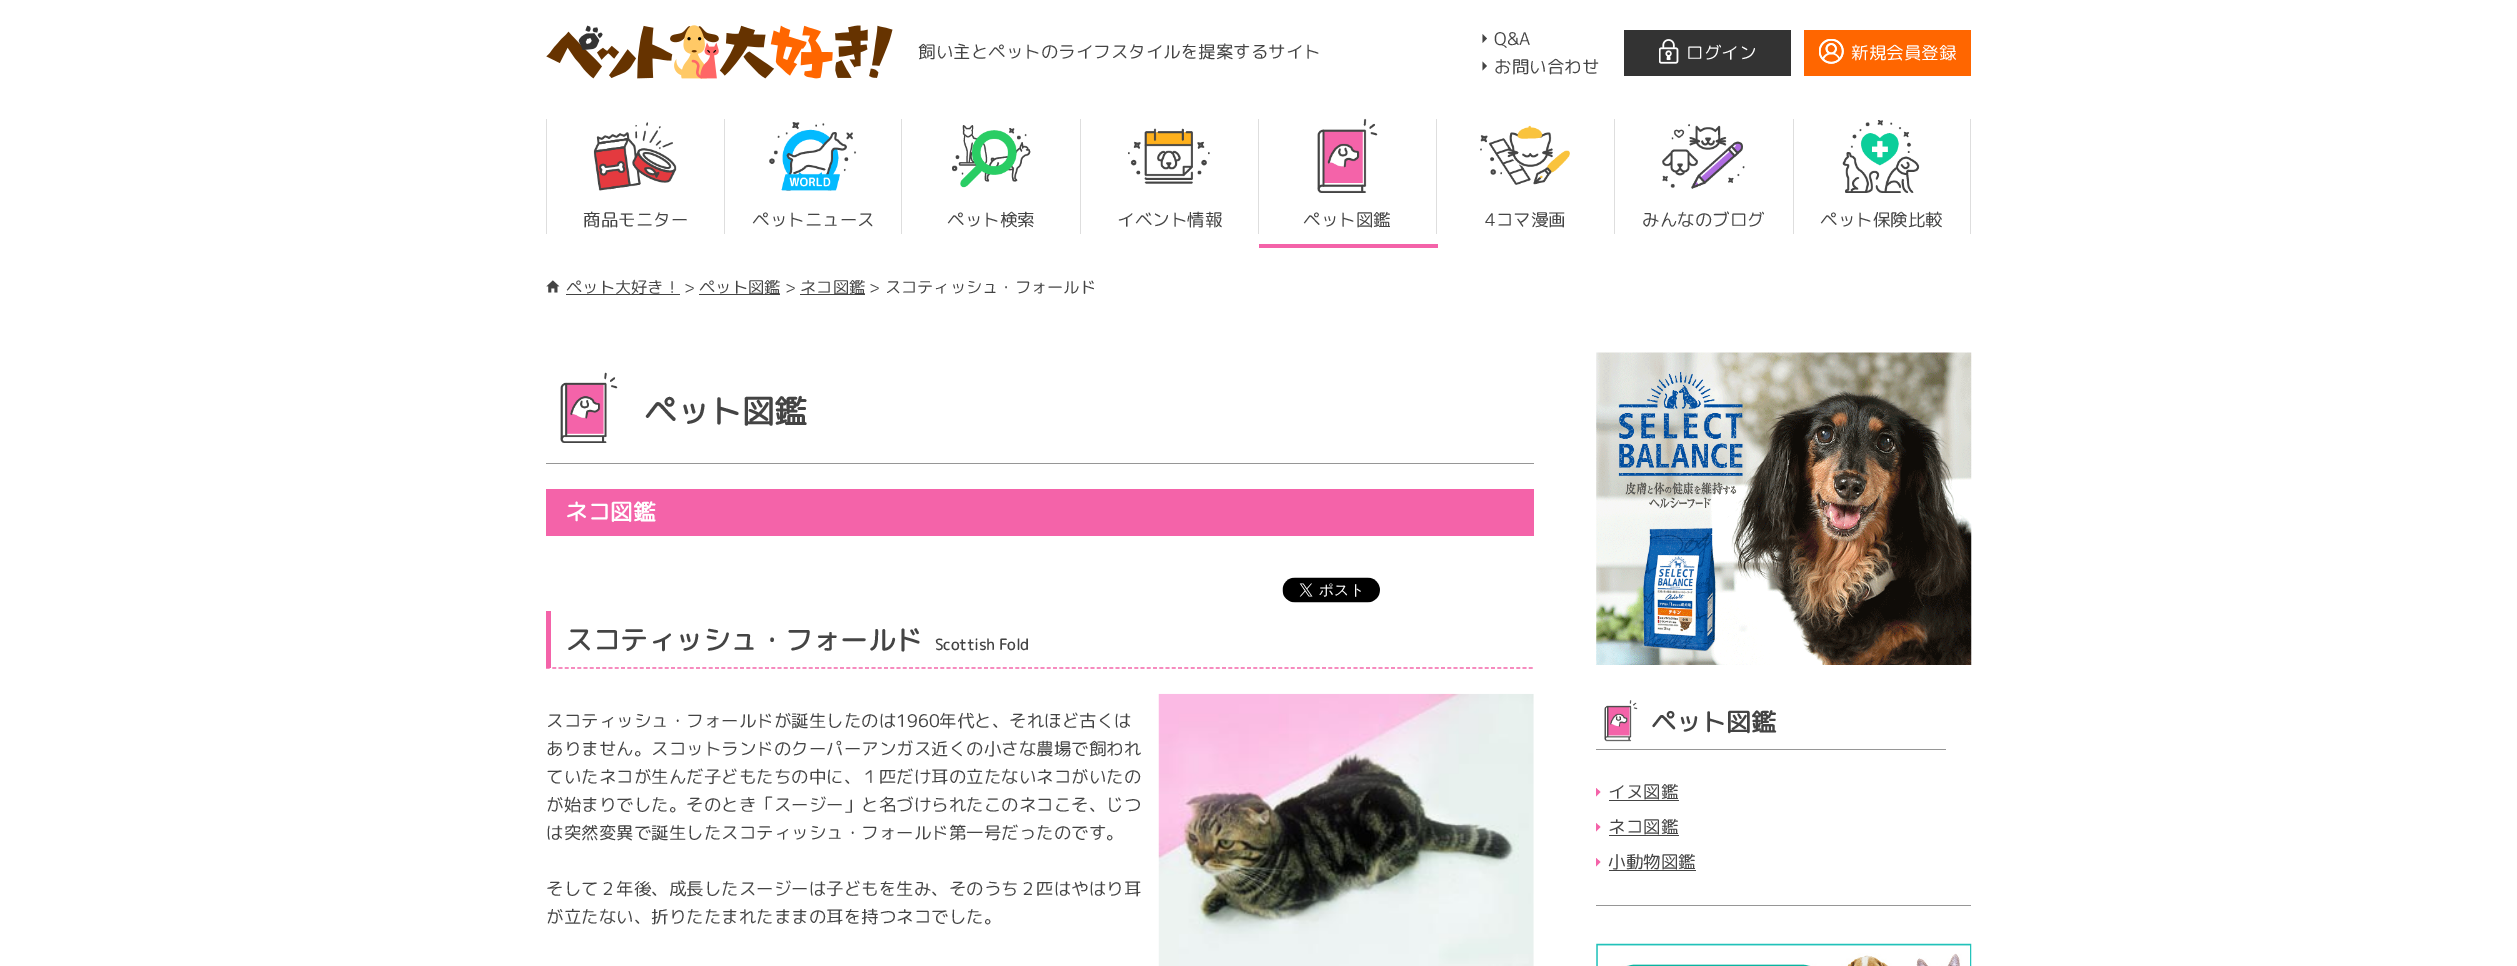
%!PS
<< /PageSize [2517 966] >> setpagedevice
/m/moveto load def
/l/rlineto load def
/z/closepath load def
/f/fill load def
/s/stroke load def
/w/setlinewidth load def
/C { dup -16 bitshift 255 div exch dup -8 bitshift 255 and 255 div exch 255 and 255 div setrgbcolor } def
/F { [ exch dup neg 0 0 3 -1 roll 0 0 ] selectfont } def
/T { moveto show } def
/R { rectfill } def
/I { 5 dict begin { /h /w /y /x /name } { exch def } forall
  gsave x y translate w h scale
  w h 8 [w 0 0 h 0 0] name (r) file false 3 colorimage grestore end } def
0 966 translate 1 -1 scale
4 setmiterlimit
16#FFFFFF C
0 0 2517 966 R
(1.rgb) 546 25 347 54 I
/RoundedMplus1c-Regular 17.5 F
16#444444 C
(飼い主とペットのライフスタイルを提案するサイト) 918 58 T
(Q&A) 1494 45 T
1482.5 34 m 4.5 4.5 l -4.5 4.5 l z f
(お問い合わせ) 1494 73 T
1482.5 61.5 m 4.5 4.5 l -4.5 4.5 l z f
16#333333 C
1624 30 167 46 R
(2.rgb) 1659 39 20 25 I
16#FFFFFF C
(ログイン) 1686 59 T
16#FF6600 C
1804 30 167 46 R
(3.rgb) 1819 39 25 25 I
16#FFFFFF C
(新規会員登録) 1851 59 T
16#DEDEDE C
724 119 1 115 R
546 119 1 115 R
(4.rgb) 593 122 84 69 I
16#444444 C
(商品モニター) 583 226 T
16#DEDEDE C
901 119 1 115 R
(5.rgb) 769 122 88 69 I
16#444444 C
(ペットニュース) 752 226 T
16#DEDEDE C
1080 119 1 115 R
(6.rgb) 952 125 79 63 I
16#444444 C
(ペット検索) 947 226 T
16#DEDEDE C
1258 119 1 115 R
(7.rgb) 1128 128 82 56 I
16#444444 C
(イベント情報) 1117 226 T
16#F463A9 C
1259 244 179 4 R
16#DEDEDE C
1436 119 1 115 R
(8.rgb) 1317 118 61 75 I
16#444444 C
(ペット図鑑) 1303 226 T
16#DEDEDE C
1614 119 1 115 R
(9.rgb) 1480 125 90 60 I
16#444444 C
(4コマ漫画) 1485 226 T
16#DEDEDE C
1793 119 1 115 R
(10.rgb) 1662 124 83 65 I
16#444444 C
(みんなのブログ) 1642 226 T
16#DEDEDE C
1970 119 1 115 R
(11.rgb) 1842 120 78 73 I
16#444444 C
(ペット保険比較) 1820 226 T
(12.rgb) 546 280 14 13 I
566 294 114 1 R
/RoundedMplus1c-Regular 16.25 F
(ペット大好き！ >) 566 293 T
699 294 81 1 R
(ペット図鑑 >) 699 293 T
800 294 65 1 R
(ネコ図鑑 > スコティッシュ・フォールド) 800 293 T
16#969696 C
546 463 988 1 R
(13.rgb) 560 372 58 71 I
/RoundedMplus1c-Bold 32.5 F
16#444444 C
(ペット図鑑) 644 423 T
16#F463A9 C
546 489 988 47 R
/RoundedMplus1c-Bold 22.5 F
16#FFFFFF C
(ネコ図鑑) 565 520 T
(14.rgb) 1282 577 98 26 I
16#F463A9 C
1.2 w
[3.75 2.51] 0 setdash
546 668 m 988 0 l s
546 611 5 57 R
/RoundedMplus1c-Bold 27.5 F
16#444444 C
(スコティッシュ・フォールド) 565 650 T
/RoundedMplus1c-Bold 15 F
(Scottish Fold) 935 650 T
/RoundedMplus1c-Regular 17.5 F
(スコティッシュ・フォールドが誕生したのは1960年代と、それほど古くは) 546 727 T
(ありません。スコットランドのクーパーアンガス近くの小さな農場で飼われ) 546 755 T
(ていたネコが生んだ子どもたちの中に、１匹だけ耳の立たないネコがいたの) 546 783 T
(が始まりでした。そのとき「スージー」と名づけられたこのネコこそ、じつ) 546 811 T
(は突然変異で誕生したスコティッシュ・フォールド第一号だったのです。) 546 839 T
(そして２年後、成長したスージーは子どもを生み、そのうち２匹はやはり耳) 546 895 T
(が立たない、折りたたまれたままの耳を持つネコでした。) 546 923 T
(15.rgb) 1158 693 376 273 I
(16.rgb) 1596 352 376 313 I
16#969696 C
1596 905 375 1 R
1596 749 350 1 R
(17.rgb) 1604 700 34 42 I
/RoundedMplus1c-Bold 25 F
16#444444 C
(ペット図鑑) 1651 731 T
16#F463A9 C
1596 788 m 4.5 4 l -4.5 4.5 l z 1596 823 m 4.5 4 l -4.5 4.5 l z f
/RoundedMplus1c-Regular 17.5 F
16#444444 C
(イヌ図鑑) 1608 798 T
1609 800 70 1 R
(ネコ図鑑) 1608 833 T
1609 835 70 1 R
16#F463A9 C
1596 858 m 4.5 4 l -4.5 4.5 l z f
16#444444 C
(小動物図鑑) 1608 868 T
1609 870 87 1 R
(18.rgb) 1596 943 376 23 I
showpage
